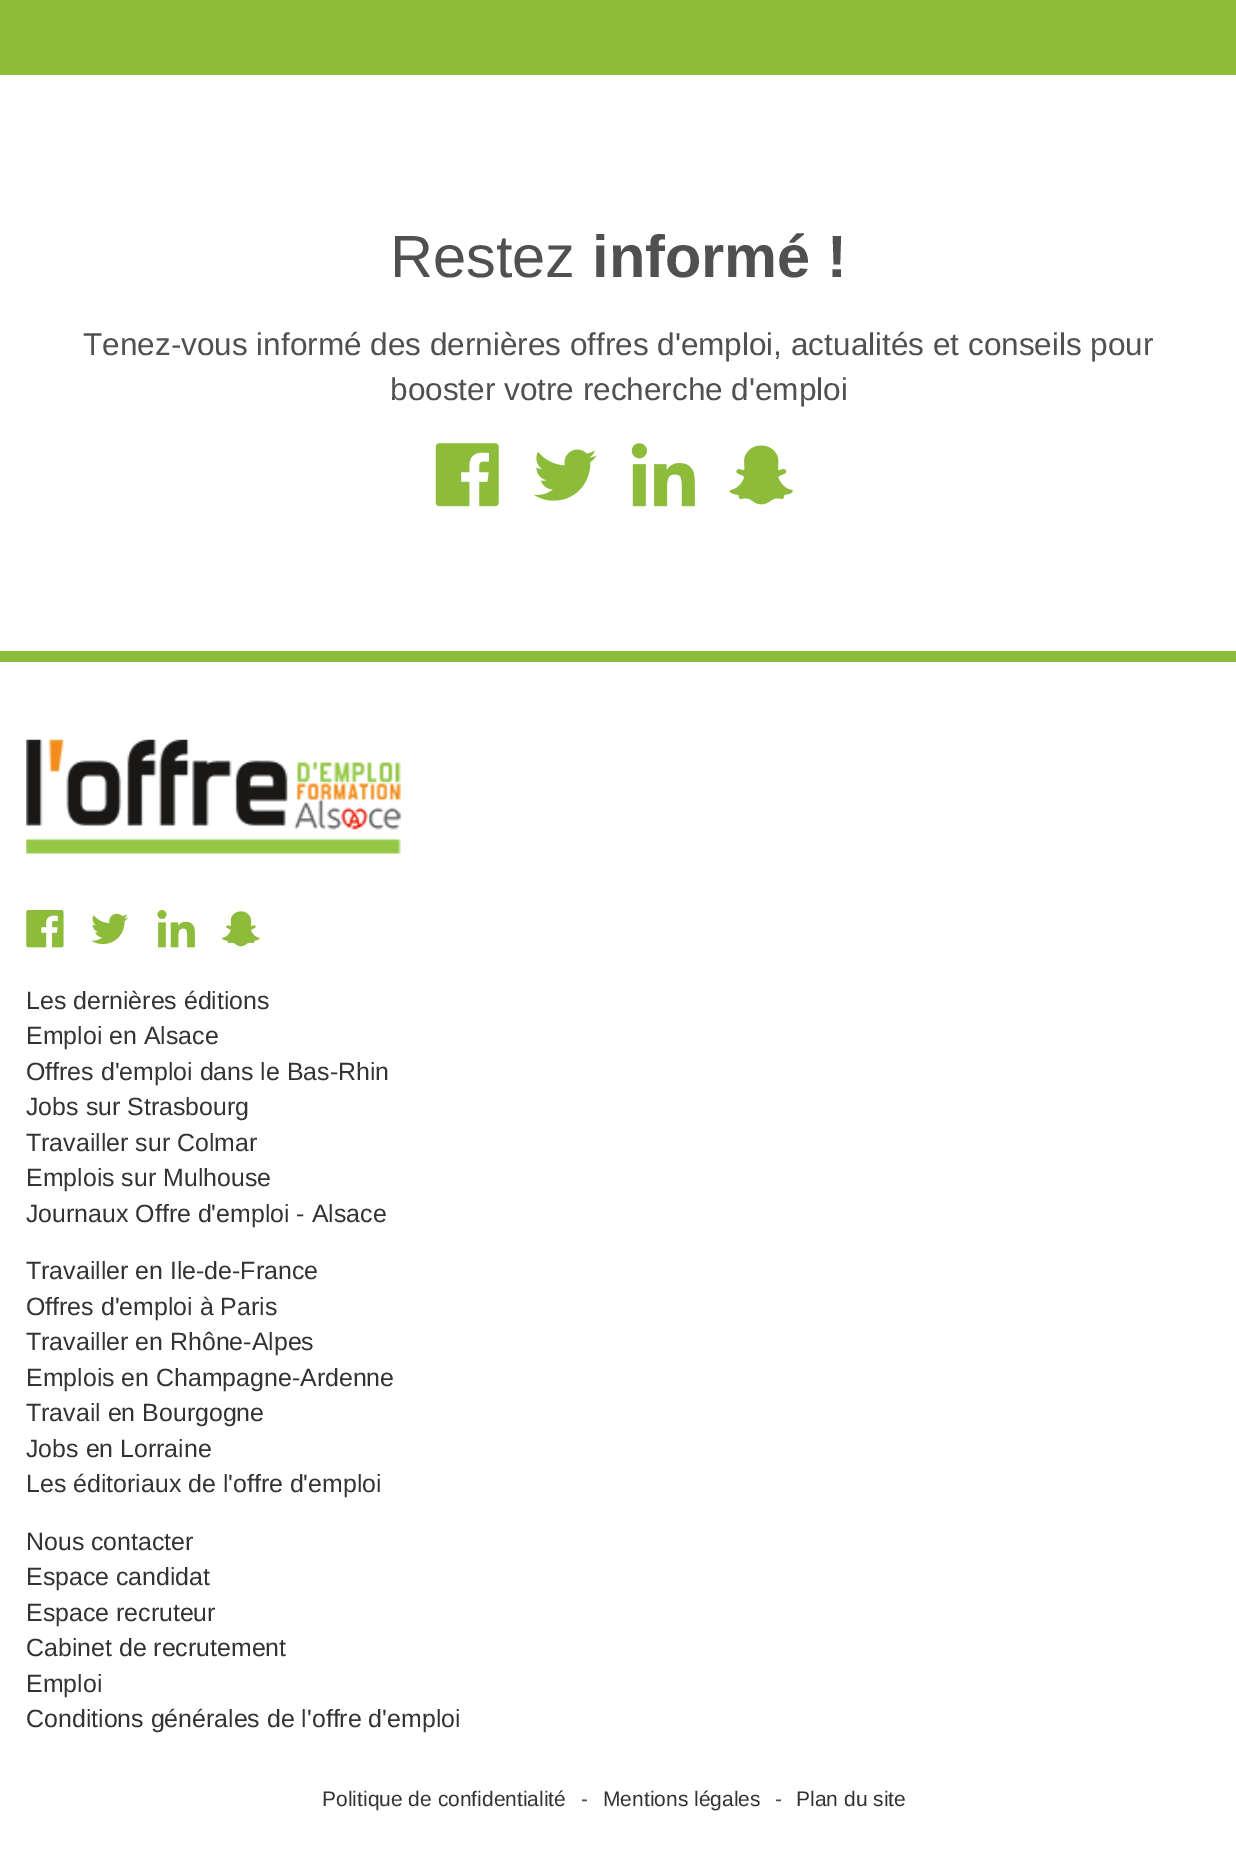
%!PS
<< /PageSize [1236 1862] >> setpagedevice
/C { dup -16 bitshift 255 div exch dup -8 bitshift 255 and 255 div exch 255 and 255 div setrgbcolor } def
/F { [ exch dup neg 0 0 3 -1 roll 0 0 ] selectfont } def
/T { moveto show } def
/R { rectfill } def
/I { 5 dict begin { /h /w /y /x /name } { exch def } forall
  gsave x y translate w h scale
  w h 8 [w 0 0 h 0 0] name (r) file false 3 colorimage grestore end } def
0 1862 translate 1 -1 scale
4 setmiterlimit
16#FFFFFF C
0 0 1236 1862 R
16#8DBC3B C
0 0 1236 75 R
0 651 1236 11 R
/LiberationSans-Regular 59.5 F
16#505050 C
(Restez) 390 277 T
/LiberationSans-Bold 59.5 F
(informé !) 592 277 T
/LiberationSans-Regular 31.5 F
(Tenez-vous informé des dernières offres d'emploi, actualités et conseils pour) 83 355 T
(booster votre recherche d'emploi) 390 400 T
(1.rgb) 435 443 64 64 I
(2.rgb) 534 449 63 52 I
(3.rgb) 631 443 64 64 I
(4.rgb) 729 445 64 60 I
(5.rgb) 26 739 375 115 I
(6.rgb) 26 910 38 38 I
(7.rgb) 91 913 38 32 I
(8.rgb) 157 910 38 38 I
(9.rgb) 222 911 38 36 I
/LiberationSans-Regular 24.9 F
16#333333 C
(Les dernières éditions) 26 1009 T
(Emploi en Alsace) 26 1044 T
(Offres d'emploi dans le Bas-Rhin) 26 1080 T
(Jobs sur Strasbourg) 26 1115 T
(Travailler sur Colmar) 26 1151 T
(Emplois sur Mulhouse) 26 1186 T
(Journaux Offre d'emploi - Alsace) 26 1222 T
(Travailler en Ile-de-France) 26 1279 T
(Offres d'emploi à Paris) 26 1315 T
(Travailler en Rhône-Alpes) 26 1350 T
(Emplois en Champagne-Ardenne) 26 1386 T
(Travail en Bourgogne) 26 1421 T
(Jobs en Lorraine) 26 1457 T
(Les éditoriaux de l'offre d'emploi) 26 1492 T
(Nous contacter) 26 1550 T
(Espace candidat) 26 1585 T
(Espace recruteur) 26 1621 T
(Cabinet de recrutement) 26 1656 T
(Emploi) 26 1692 T
(Conditions générales de l'offre d'emploi) 26 1727 T
/LiberationSans-Regular 21 F
(Politique de confidentialité) 322 1806 T
16#505050 C
(-) 581 1806 T
16#333333 C
(Mentions légales) 603 1806 T
16#505050 C
(-) 775 1806 T
16#333333 C
(Plan du site) 796 1806 T
showpage
